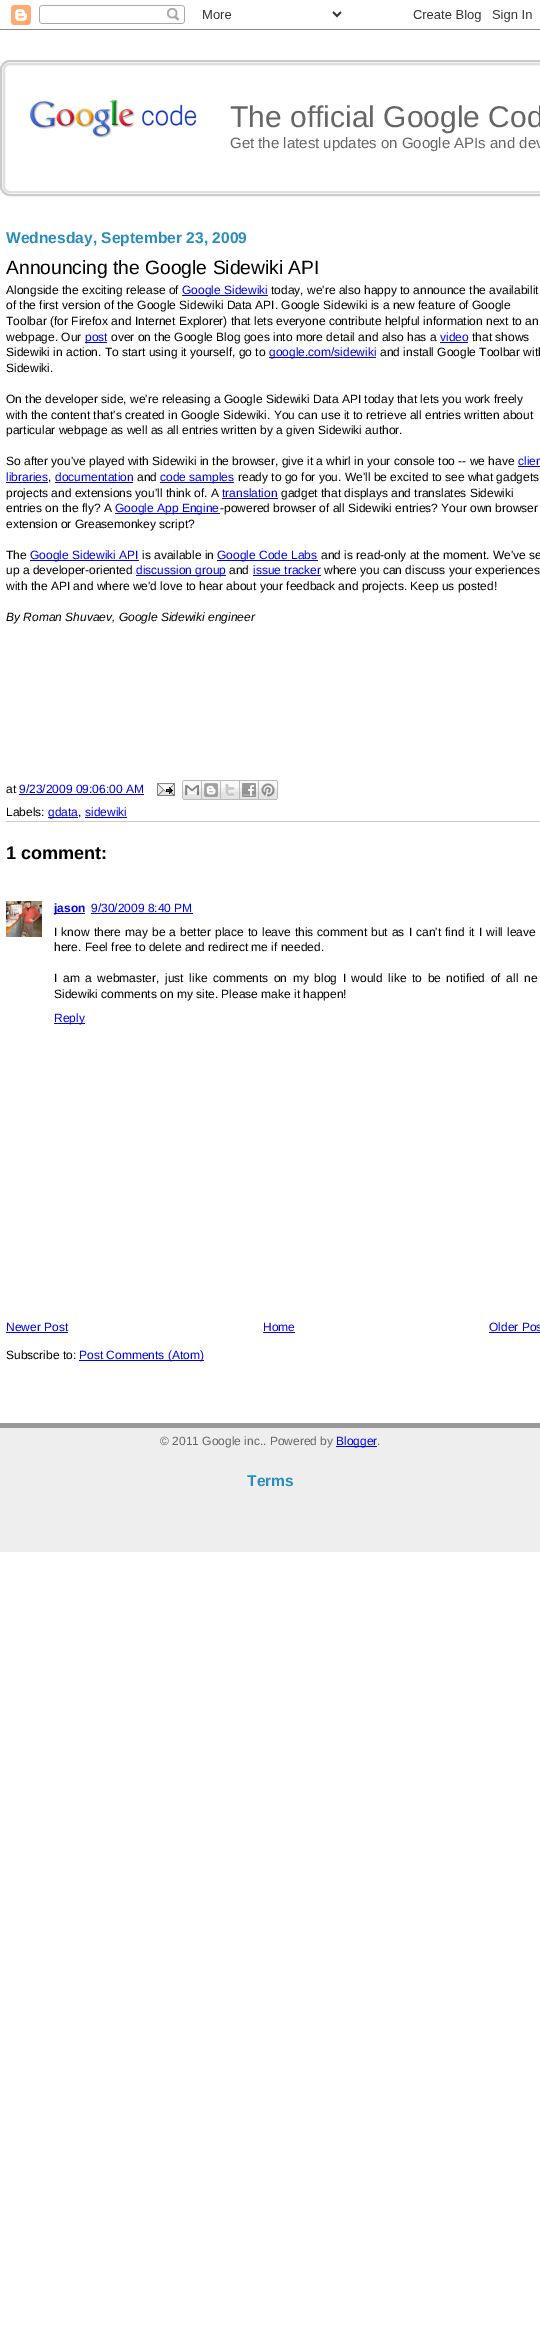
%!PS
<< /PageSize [540 2329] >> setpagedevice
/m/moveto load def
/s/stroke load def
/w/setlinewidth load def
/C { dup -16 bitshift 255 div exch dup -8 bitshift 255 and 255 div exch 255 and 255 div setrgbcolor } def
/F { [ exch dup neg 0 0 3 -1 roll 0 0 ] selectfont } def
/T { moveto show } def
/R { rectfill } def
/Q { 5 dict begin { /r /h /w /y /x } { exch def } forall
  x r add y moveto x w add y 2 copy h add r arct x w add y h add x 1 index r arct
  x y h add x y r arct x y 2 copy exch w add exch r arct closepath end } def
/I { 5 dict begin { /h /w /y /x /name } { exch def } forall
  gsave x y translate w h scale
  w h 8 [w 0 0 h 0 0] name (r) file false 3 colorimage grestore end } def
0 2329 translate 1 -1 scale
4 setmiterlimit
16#FFFFFF C
0 0 540 2329 R
(1.rgb) 0 5 540 25 I
16#CCCCCC C
2 w
1 61 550 134 9 Q s
16#E0E0E0 C
4 64 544 128 6 Q s
(2.rgb) 30 100 167 38 I
/LiberationSans-Regular 30 F
16#666666 C
(The official Google Cod) 230 127 T
/LiberationSans-Regular 15 F
(Get the latest updates on Google APIs and dev) 230 148 T
/LiberationSans-Bold 15.6 F
16#298DBE C
(Wednesday, September 23, 2009) 6 243 T
16#CCCCCC C
6 821 534 1 R
/LiberationSans-Regular 19.25 F
16#000000 C
(Announcing the Google Sidewiki API) 6 274 T
/LiberationSans-Regular 12 F
(Alongside the exciting release of) 6 294 T
16#0000EE C
182 295 86 1 R
(Google Sidewiki) 182 294 T
16#000000 C
(today, we're also happy to announce the availabilit) 271 294 T
(of the first version of the Google Sidewiki Data API. Google Sidewiki is a new feature of Google) 6 309 T
(Toolbar \(for Firefox and Internet Explorer\) that lets everyone contribute helpful information next to an) 6 325 T
(webpage. Our) 6 341 T
16#0000EE C
85 342 22 1 R
(post) 85 341 T
16#000000 C
(over on the Google Blog goes into more detail and also has a) 111 341 T
16#0000EE C
(video) 440 341 T
440 342 28 1 R
16#000000 C
(that shows) 472 341 T
(Sidewiki in action. To start using it yourself, go to) 6 356 T
16#0000EE C
269 357 107 1 R
(google.com/sidewiki) 269 356 T
16#000000 C
(and install Google Toolbar with) 380 356 T
(Sidewiki.) 6 372 T
(On the developer side, we're releasing a Google Sidewiki Data API today that lets you work freely) 6 403 T
(with the content that's created in Google Sidewiki. You can use it to retrieve all entries written about) 6 419 T
(particular webpage as well as all entries written by a given Sidewiki author.) 6 434 T
(So after you've played with Sidewiki in the browser, give it a whirl in your console too -- we have) 6 465 T
16#0000EE C
(clien) 518 465 T
518 466 22 1 R
(libraries) 6 481 T
6 482 42 1 R
16#000000 C
(,) 48 481 T
16#0000EE C
(documentation) 55 481 T
55 482 78 1 R
16#000000 C
(and) 137 481 T
16#0000EE C
160 482 74 1 R
(code samples) 160 481 T
16#000000 C
(ready to go for you. We'll be excited to see what gadgets) 238 481 T
(projects and extensions you'll think of. A) 6 497 T
16#0000EE C
(translation) 222 497 T
222 498 56 1 R
16#000000 C
(gadget that displays and translates Sidewiki) 281 497 T
(entries on the fly? A) 6 512 T
16#0000EE C
115 513 105 1 R
(Google App Engine) 115 512 T
16#000000 C
(-powered browser of all Sidewiki entries? Your own browser) 220 512 T
(extension or Greasemonkey script?) 6 528 T
(The) 6 559 T
16#0000EE C
30 560 109 1 R
(Google Sidewiki API) 30 559 T
16#000000 C
(is available in) 142 559 T
16#0000EE C
217 560 101 1 R
(Google Code Labs) 217 559 T
16#000000 C
(and is read-only at the moment. We've se) 321 559 T
(up a developer-oriented) 6 574 T
16#0000EE C
136 575 90 1 R
(discussion group) 136 574 T
16#000000 C
(and) 229 574 T
16#0000EE C
(issue tracker) 253 574 T
253 575 68 1 R
16#000000 C
(where you can discuss your experiences) 324 574 T
(with the API and where we'd love to hear about your feedback and projects. Keep us posted!) 6 590 T
/LiberationSans-Italic 12 F
(By Roman Shuvaev, Google Sidewiki engineer) 6 621 T
/LiberationSans-Regular 12 F
(at) 6 793 T
16#0000EE C
(9/23/2009 09:06:00 AM) 19 793 T
19 794 125 1 R
(3.rgb) 157 783 18 13 I
(4.rgb) 182 780 20 20 I
(5.rgb) 202 780 19 20 I
(6.rgb) 221 780 19 20 I
(7.rgb) 240 780 19 20 I
(8.rgb) 259 780 19 20 I
16#000000 C
(Labels:) 6 816 T
16#0000EE C
48 817 30 1 R
(gdata) 48 816 T
16#000000 C
(,) 78 816 T
16#0000EE C
85 817 42 1 R
(sidewiki) 85 816 T
/LiberationSans-Bold 18 F
16#000000 C
(1 comment:) 6 859 T
(9.rgb) 6 901 36 36 I
16#0000EE C
54 913 31 1 R
/LiberationSans-Bold 12 F
(jason) 54 912 T
/LiberationSans-Regular 12 F
(9/30/2009 8:40 PM) 91 912 T
91 913 102 1 R
16#000000 C
54 936 m .8 0 32 (I know there may be a better place to leave this comment but as I can't find it I will leave) widthshow
(here. Feel free to delete and redirect me if needed.) 54 951 T
54 982 m 2.25 0 32 (I am a webmaster, just like comments on my blog I would like to be notified of all ne) widthshow
(Sidewiki comments on my site. Please make it happen!) 54 998 T
16#0000EE C
54 1023 31 1 R
(Reply) 54 1022 T
(Newer Post) 6 1331 T
6 1332 62 1 R
(Home) 263 1331 T
263 1332 32 1 R
(Older Pos) 489 1331 T
489 1332 51 1 R
16#000000 C
(Subscribe to:) 6 1359 T
16#0000EE C
79 1360 125 1 R
(Post Comments \(Atom\)) 79 1359 T
16#EEEEEE C
0 1428 540 124 R
16#999999 C
0 1423 540 5 R
16#666666 C
(© 2011 Google inc.. Powered by) 160 1445 T
16#0000EE C
336 1446 41 1 R
(Blogger) 336 1445 T
16#666666 C
(.) 377 1445 T
/LiberationSans-Bold 15.6 F
16#298DBE C
(Terms) 247 1486 T
showpage
